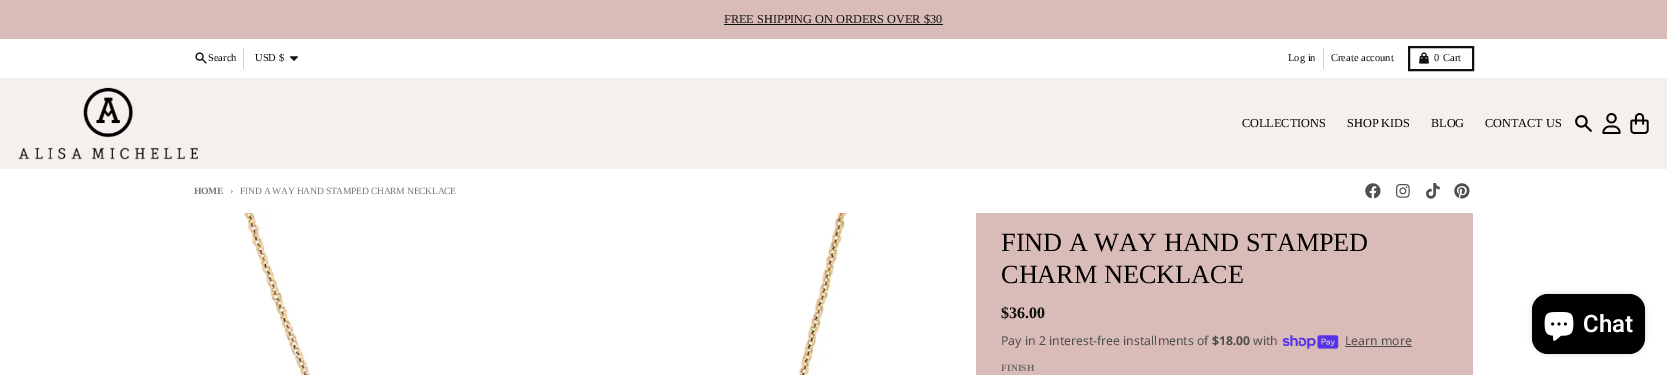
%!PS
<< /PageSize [1667 375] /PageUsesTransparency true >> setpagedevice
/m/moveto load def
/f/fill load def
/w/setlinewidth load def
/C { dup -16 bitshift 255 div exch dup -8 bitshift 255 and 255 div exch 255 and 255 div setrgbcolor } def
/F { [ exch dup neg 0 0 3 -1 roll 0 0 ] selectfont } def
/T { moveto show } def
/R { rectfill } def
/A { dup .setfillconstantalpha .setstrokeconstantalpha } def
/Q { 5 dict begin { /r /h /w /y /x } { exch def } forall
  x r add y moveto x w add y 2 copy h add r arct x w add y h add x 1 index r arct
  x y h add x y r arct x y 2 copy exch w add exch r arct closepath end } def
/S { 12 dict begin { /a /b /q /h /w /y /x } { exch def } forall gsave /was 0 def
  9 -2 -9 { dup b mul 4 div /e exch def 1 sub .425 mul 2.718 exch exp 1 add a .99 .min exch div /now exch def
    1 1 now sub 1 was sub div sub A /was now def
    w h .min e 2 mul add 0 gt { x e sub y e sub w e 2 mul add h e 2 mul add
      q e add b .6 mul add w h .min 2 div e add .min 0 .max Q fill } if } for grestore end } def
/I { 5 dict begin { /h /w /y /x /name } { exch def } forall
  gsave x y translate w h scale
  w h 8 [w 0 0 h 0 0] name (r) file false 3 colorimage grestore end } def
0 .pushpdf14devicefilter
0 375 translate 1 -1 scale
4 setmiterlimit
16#D9BCB7 C
0 0 1667 375 R
/LiberationSerif-Regular 12.25 F
16#101010 C
(FREE SHIPPING ON ORDERS OVER $30) 724 23 T
16#100F0F C
724 24 219 1 R
16#FFFFFF C
0 39 1667 39 R
(1.rgb) 195 52 12 12 I
/LiberationSerif-Regular 10.5 F
16#101010 C
(Search) 208 61 T
16#CFCFCF C
243 48 1 21 R
16#101010 C
(USD $) 255 61 T
(2.rgb) 290 56 8 5 I
(Log in) 1288 61 T
16#CFCFCF C
1323 48 1 21 R
16#101010 C
(Create account) 1331 61 T
2 w
1409 47 64 23 rectstroke
(3.rgb) 1419 52 10 12 I
(0) 1434 61 T
(Cart) 1443 61 T
16#F5EFED C
0 78 1667 91 R
(4.rgb) 18 87 180 73 I
/LiberationSerif-Regular 12.25 F
16#000000 C
(COLLECTIONS) 1242 127 T
(SHOP KIDS) 1347 127 T
(BLOG) 1431 127 T
(CONTACT US) 1485 127 T
(5.rgb) 1575 115 17 17 I
(6.rgb) 1602 113 19 21 I
(7.rgb) 1630 113 19 21 I
16#FFFFFF C
0 169 1667 206 R
/LiberationSerif-Bold 9.6 F
16#7B7B7B C
194 194 m -.25 0 (HOME) ashow
/LiberationSerif-Regular 10.5 F
230 194 m -.25 0 (›) ashow
/LiberationSerif-Regular 9.6 F
240 194 m -.25 0 (FIND A WAY HAND STAMPED CHARM NECKLACE) ashow
(8.rgb) 1365 183 16 16 I
(9.rgb) 1396 184 14 14 I
(10.rgb) 1426 183 14 16 I
(11.rgb) 1454 183 16 16 I
(12.rgb) 244 213 607 162 I
16#D9BCB7 C
976 213 497 162 R
/LiberationSerif-Regular 26.25 F
16#000000 C
(FIND A WAY HAND STAMPED) 1001 251 T
(CHARM NECKLACE) 1001 283 T
/LiberationSerif-Bold 16 F
16#101010 C
($36.00) 1001 318 T
/NotoSans-Regular 12.25 F
16#4F4F4F C
(Pay in 2 interest-free installments of) 1001 345 T
/NotoSans-Bold 12.25 F
($18.00) 1212 345 T
/NotoSans-Regular 12.25 F
(with) 1253 345 T
(13.rgb) 1282 335 57 14 I
(Learn more) 1345 345 T
1345 346 67 1 R
/LiberationSerif-Bold 9.6 F
16#726A69 C
(FINISH) 1001 371 T
16#000000 C
1532 294 113 60 16 2.5 .15 S
1532 294 113 60 16 Q f
(14.rgb) 1544 312 30 29 I
/Roboto-SemiBold 24 F
16#FFFFFF C
(Chat) 1583 332 T
.poppdf14devicefilter showpage
